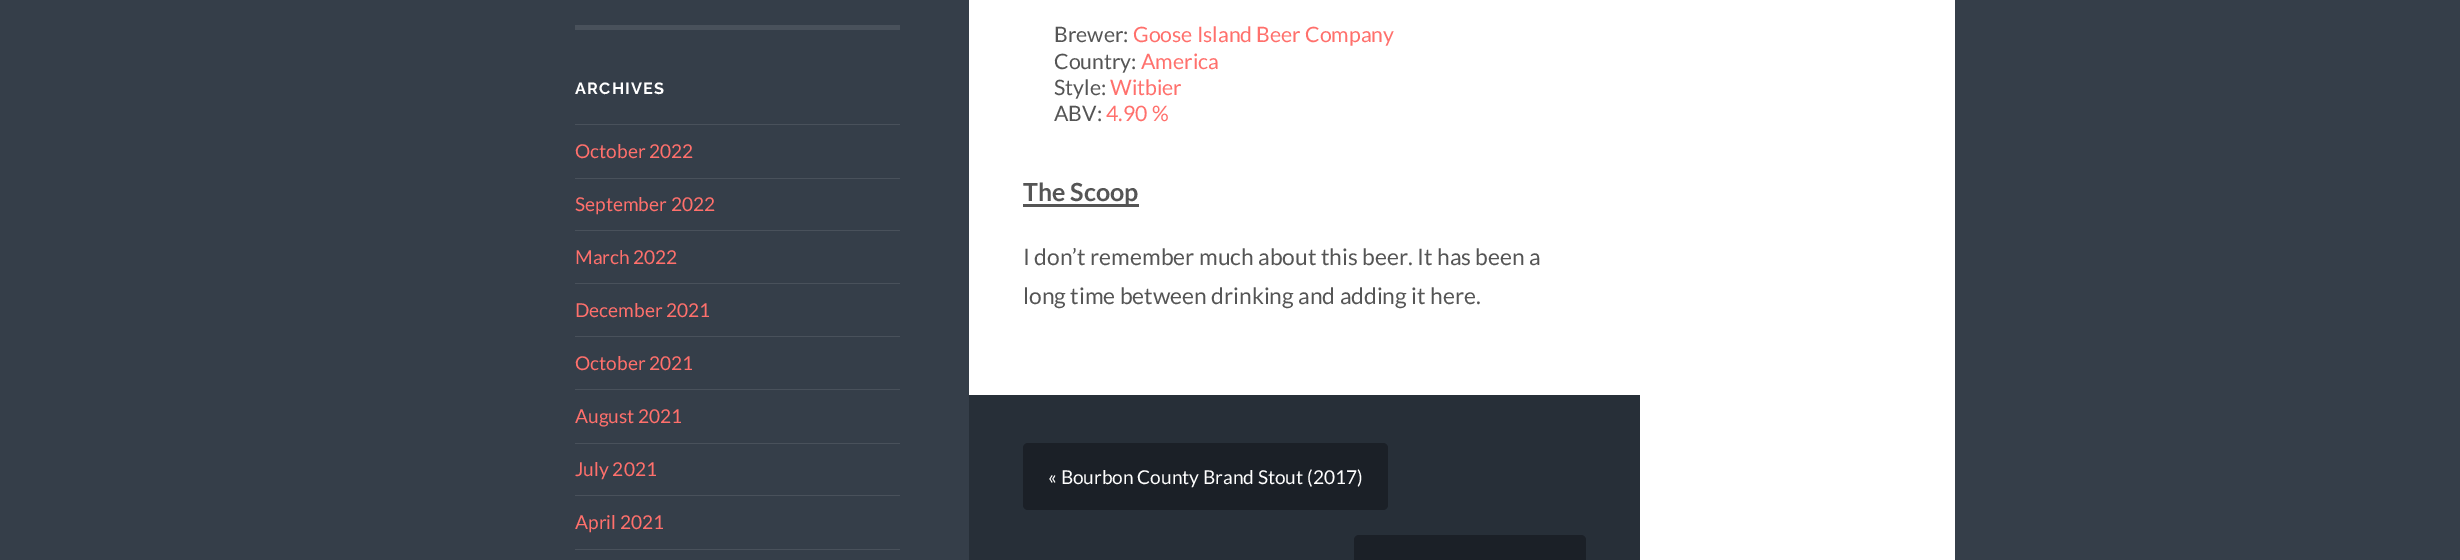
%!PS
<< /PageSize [2460 560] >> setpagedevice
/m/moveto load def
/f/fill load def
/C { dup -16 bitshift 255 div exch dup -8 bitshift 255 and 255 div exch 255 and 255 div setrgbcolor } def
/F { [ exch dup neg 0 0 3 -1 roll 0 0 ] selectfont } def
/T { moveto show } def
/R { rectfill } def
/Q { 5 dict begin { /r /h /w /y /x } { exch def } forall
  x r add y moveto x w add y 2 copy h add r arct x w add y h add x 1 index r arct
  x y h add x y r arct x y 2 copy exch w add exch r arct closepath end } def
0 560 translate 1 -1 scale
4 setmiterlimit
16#353E49 C
0 0 2460 560 R
16#49515B C
575 25 325 5 R
/Raleway-Thin 16.25 F
16#FFFFFF C
575 94 m 1.25 0 (ARCHIVES) ashow
16#49515B C
575 124 325 1 R
/Lato-Regular 19.1 F
16#FF706C C
(October 2022) 575 158 T
16#49515B C
575 178 325 1 R
16#FF706C C
(September 2022) 575 211 T
16#49515B C
575 230 325 1 R
16#FF706C C
(March 2022) 575 264 T
16#49515B C
575 283 325 1 R
16#FF706C C
(December 2021) 575 317 T
16#49515B C
575 336 325 1 R
16#FF706C C
(October 2021) 575 370 T
16#49515B C
575 389 325 1 R
16#FF706C C
(August 2021) 575 423 T
16#49515B C
575 443 325 1 R
16#FF706C C
(July 2021) 575 476 T
16#49515B C
575 495 325 1 R
16#FF706C C
(April 2021) 575 529 T
16#49515B C
575 549 325 1 R
16#FFFFFF C
969 0 986 560 R
/Lato-Regular 21.25 F
16#555555 C
(Brewer:) 1054 42 T
16#FF706C C
(Goose Island Beer Company) 1133 42 T
16#555555 C
(Country:) 1054 69 T
16#FF706C C
(America) 1141 69 T
16#555555 C
(Style:) 1054 95 T
16#FF706C C
(Witbier) 1110 95 T
16#555555 C
(ABV:) 1054 121 T
16#FF706C C
(4.90 %) 1106 121 T
16#555555 C
1023 204 116 3 R
/Lato-Bold 25 F
(The Scoop) 1023 201 T
/Lato-Regular 22.8 F
(I don’t remember much about this beer. It has been a) 1023 265 T
(long time between drinking and adding it here.) 1023 304 T
16#272F38 C
969 395 671 165 R
16#1B2027 C
1023 443 365 67 5 Q f
/Lato-Regular 19.1 F
16#FFFFFF C
(« Bourbon County Brand Stout \(2017\)) 1048 484 T
16#1B2027 C
1354 535 232 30 5 Q f
showpage
